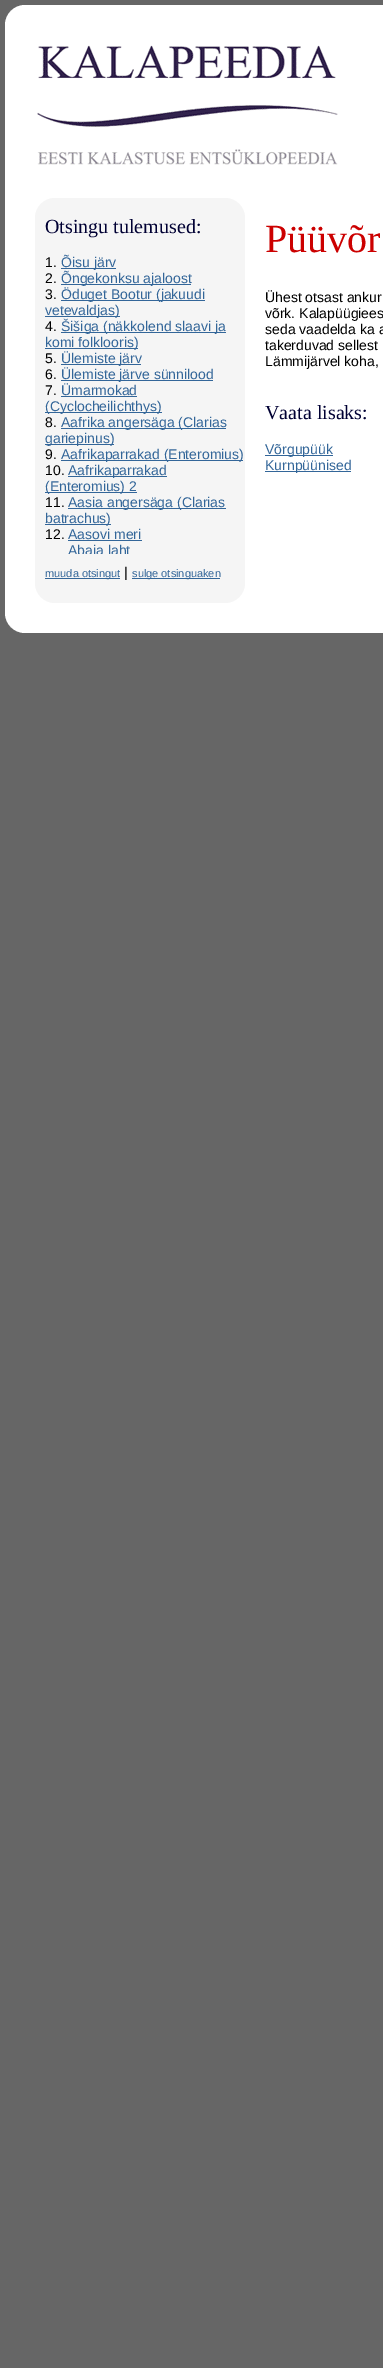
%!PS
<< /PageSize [383 2368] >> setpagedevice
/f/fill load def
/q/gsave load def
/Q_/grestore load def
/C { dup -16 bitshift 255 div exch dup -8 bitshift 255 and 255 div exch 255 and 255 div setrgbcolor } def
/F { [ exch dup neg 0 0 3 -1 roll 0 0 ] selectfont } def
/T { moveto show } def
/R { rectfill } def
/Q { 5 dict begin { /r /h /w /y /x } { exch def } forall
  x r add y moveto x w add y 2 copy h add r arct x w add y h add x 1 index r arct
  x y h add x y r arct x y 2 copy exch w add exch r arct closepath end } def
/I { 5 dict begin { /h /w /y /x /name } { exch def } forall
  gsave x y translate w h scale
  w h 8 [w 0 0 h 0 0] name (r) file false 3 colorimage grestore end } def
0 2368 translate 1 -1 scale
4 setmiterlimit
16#666666 C
0 0 383 2368 R
16#FFFFFF C
5 5 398 628 20 Q f
(1.rgb) 37 45 301 120 I
16#F5F5F5 C
35 198 210 405 20 Q f
/LiberationSerif-Regular 20 F
16#000033 C
(Otsingu tulemused:) 45 233 T
/LiberationSans-Regular 14 F
16#000000 C
(1.) 45 267 T
16#336699 C
61 268 55 1 R
(Õisu järv) 61 267 T
16#000000 C
(2.) 45 283 T
16#336699 C
61 284 130 1 R
(Õngekonksu ajaloost) 61 283 T
16#000000 C
(3.) 45 299 T
16#336699 C
61 300 144 1 R
(Öduget Bootur \(jakuudi) 61 299 T
45 316 75 1 R
(vetevaldjas\)) 45 315 T
16#000000 C
(4.) 45 331 T
16#336699 C
61 332 165 1 R
(Šišiga \(näkkolend slaavi ja) 61 331 T
45 348 93 1 R
(komi folklooris\)) 45 347 T
16#000000 C
(5.) 45 363 T
16#336699 C
61 364 80 1 R
(Ülemiste järv) 61 363 T
16#000000 C
(6.) 45 379 T
16#336699 C
61 380 152 1 R
(Ülemiste järve sünnilood) 61 379 T
16#000000 C
(7.) 45 395 T
16#336699 C
(Ümarmokad) 61 395 T
61 396 76 1 R
45 412 117 1 R
(\(Cyclocheilichthys\)) 45 411 T
16#000000 C
(8.) 45 427 T
16#336699 C
61 428 165 1 R
(Aafrika angersäga \(Clarias) 61 427 T
45 444 69 1 R
(gariepinus\)) 45 443 T
16#000000 C
(9.) 45 459 T
16#336699 C
61 460 182 1 R
(Aafrikaparrakad \(Enteromius\)) 61 459 T
16#000000 C
(10.) 45 475 T
16#336699 C
68 476 99 1 R
(Aafrikaparrakad) 68 475 T
45 492 92 1 R
(\(Enteromius\) 2) 45 491 T
16#000000 C
(11.) 45 507 T
16#336699 C
68 508 158 1 R
(Aasia angersäga \(Clarias) 68 507 T
45 524 66 1 R
(batrachus\)) 45 523 T
16#000000 C
(12.) 45 539 T
16#336699 C
(Aasovi meri) 68 539 T
68 540 74 1 R
q
45 254 200 300 rectclip
(Abaja laht) 68 555 T
Q_
45 578 75 1 R
/LiberationSans-Regular 11 F
(muuda otsingut) 45 577 T
/LiberationSans-Regular 14 F
16#000000 C
(|) 124 577 T
16#336699 C
132 578 88 1 R
/LiberationSans-Regular 11 F
(sulge otsinguaken) 132 577 T
/LiberationSerif-Regular 40 F
16#CC0000 C
(Püüvõr) 265 252 T
/LiberationSans-Regular 14 F
16#000000 C
(Ühest otsast ankur) 265 302 T
(võrk. Kalapüügiees) 265 318 T
(seda vaadelda ka a) 265 334 T
(takerduvad sellest) 265 350 T
(Lämmijärvel koha,) 265 366 T
/LiberationSerif-Regular 20 F
16#000033 C
(Vaata lisaks:) 265 419 T
16#336699 C
265 455 68 1 R
/LiberationSans-Regular 14 F
(Võrgupüük) 265 454 T
265 471 86 1 R
(Kurnpüünised) 265 470 T
showpage
